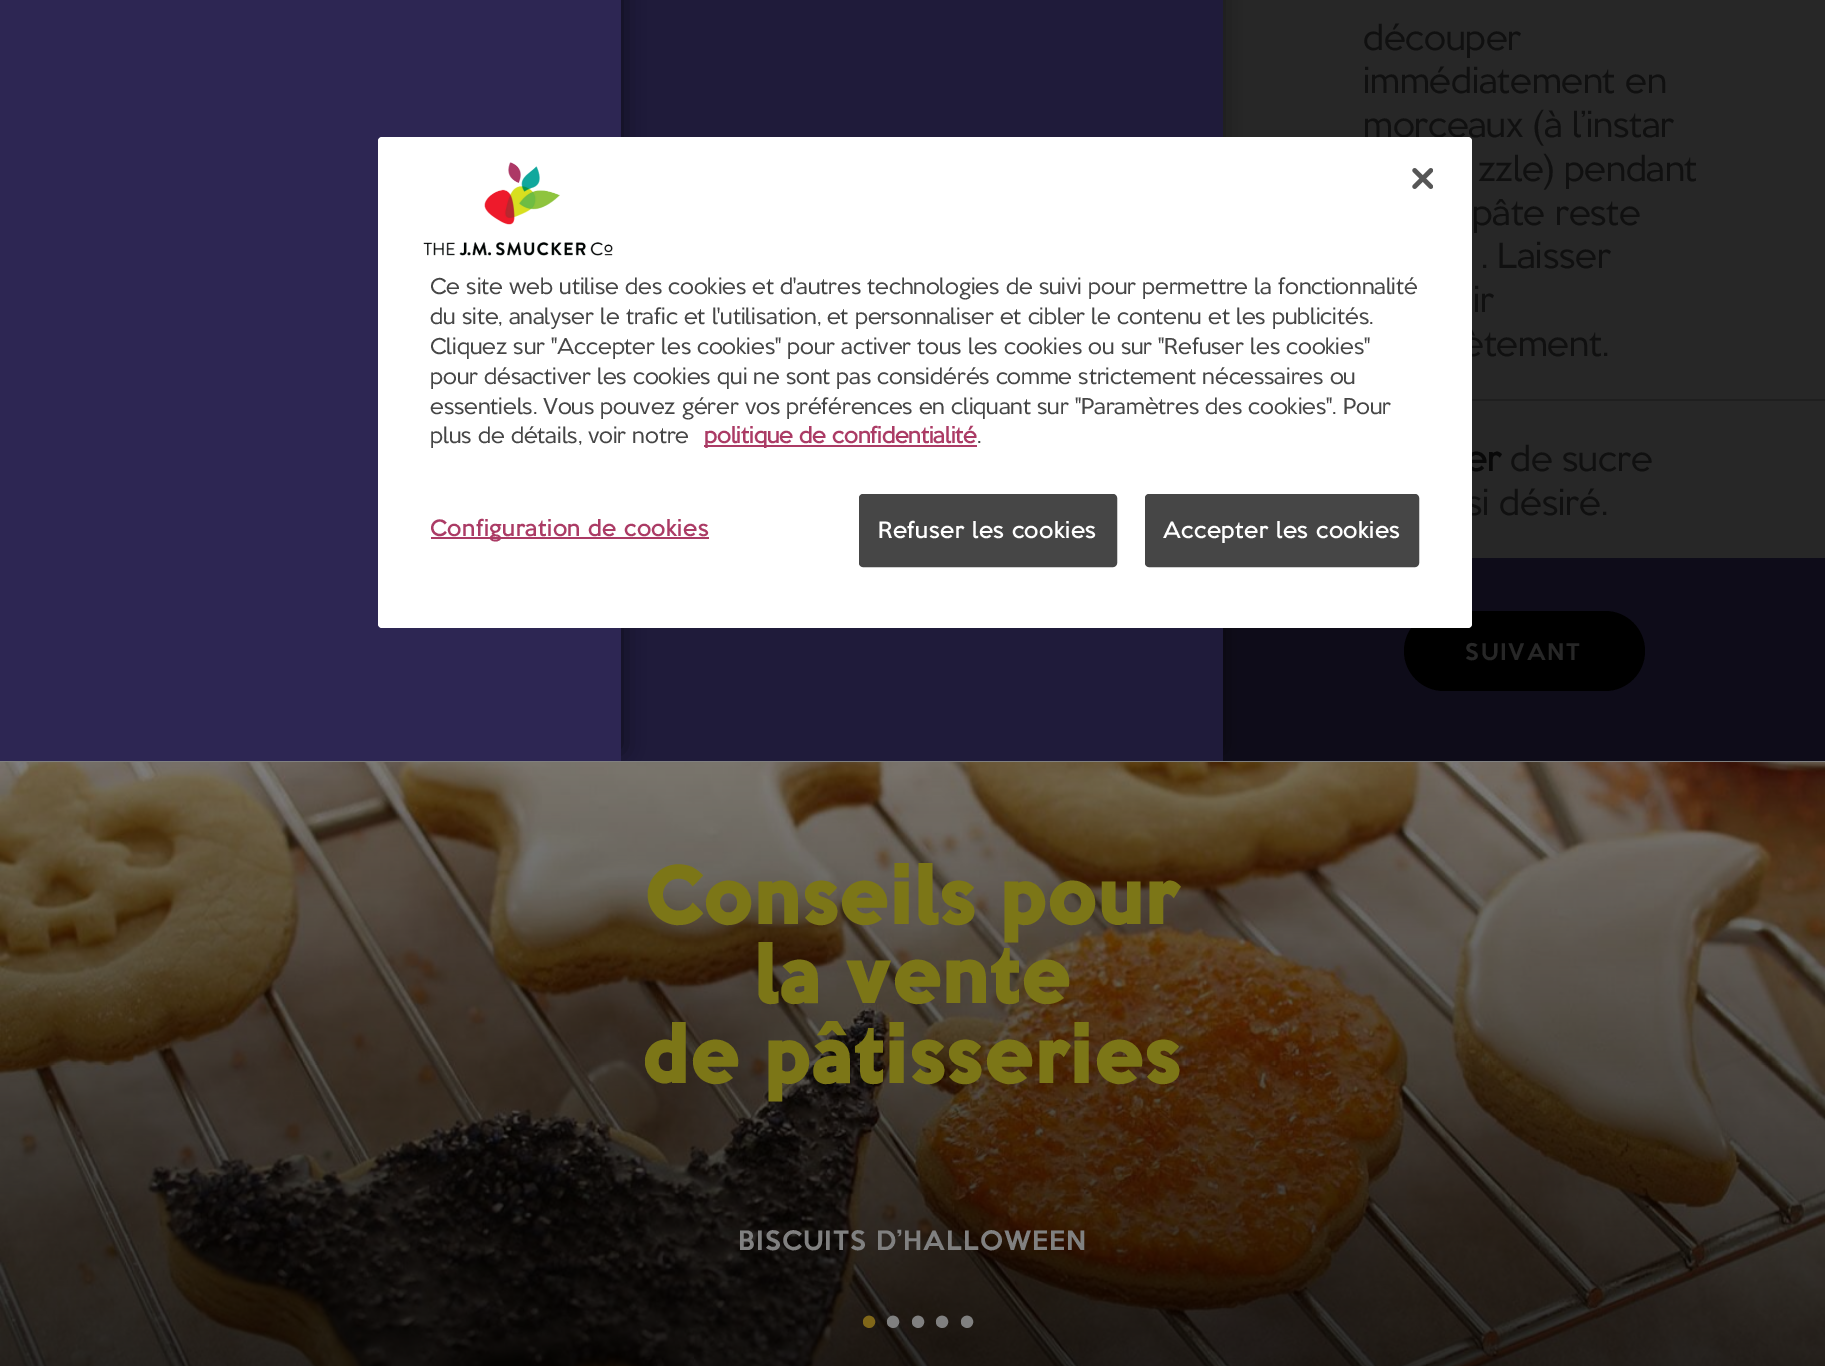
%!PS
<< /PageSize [1825 1366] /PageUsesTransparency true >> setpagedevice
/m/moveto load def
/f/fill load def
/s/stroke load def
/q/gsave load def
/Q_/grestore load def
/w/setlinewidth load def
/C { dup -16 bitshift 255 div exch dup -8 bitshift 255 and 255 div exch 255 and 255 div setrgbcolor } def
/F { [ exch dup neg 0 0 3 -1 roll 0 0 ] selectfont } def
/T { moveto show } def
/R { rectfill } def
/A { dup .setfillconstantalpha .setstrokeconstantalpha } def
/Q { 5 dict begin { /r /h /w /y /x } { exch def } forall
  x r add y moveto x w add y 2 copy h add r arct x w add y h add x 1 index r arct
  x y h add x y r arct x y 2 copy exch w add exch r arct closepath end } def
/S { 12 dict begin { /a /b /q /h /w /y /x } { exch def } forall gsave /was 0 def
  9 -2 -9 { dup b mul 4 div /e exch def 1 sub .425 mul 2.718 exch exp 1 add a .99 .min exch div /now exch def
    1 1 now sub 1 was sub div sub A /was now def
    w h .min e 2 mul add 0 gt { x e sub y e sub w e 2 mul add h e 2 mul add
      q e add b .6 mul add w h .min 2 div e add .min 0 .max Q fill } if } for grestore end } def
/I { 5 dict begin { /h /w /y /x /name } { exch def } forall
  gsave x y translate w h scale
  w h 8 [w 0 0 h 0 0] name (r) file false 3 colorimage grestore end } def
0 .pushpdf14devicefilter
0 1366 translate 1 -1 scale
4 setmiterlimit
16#808080 C
0 0 1825 1366 R
16#0E0C19 C
1223 558 602 203 R
16#272727 C
1223 0 602 558 R
(1.rgb) 0 762 1825 604 I
q
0 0 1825 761 rectclip
16#000000 C
646 -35 577 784 0 11.5 .4 S
Q_
16#1F1B3A C
621 0 602 761 R
q
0 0 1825 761 rectclip
16#000000 C
25 -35 596 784 0 11.5 .57 S
Q_
16#2D2653 C
0 0 621 761 R
16#1F1F1F C
1472 399 353 2 R
/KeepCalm-Regular 31.5 F
16#101010 C
(découper) 1363 50 T
(immédiatement en) 1363 93 T
(morceaux \(à l’instar) 1363 137 T
(zzle\) pendant) 1478 181 T
(pâte reste) 1472 225 T
(. Laisser) 1481 268 T
(ir) 1473 312 T
(ètement.) 1462 356 T
/KeepCalm-Bold 31.5 F
16#080808 C
(er) 1465 471 T
/KeepCalm-Regular 31.5 F
16#101010 C
(de sucre) 1510 471 T
(si désiré.) 1466 515 T
16#000000 C
1404 611 241 80 40 Q f
/KeepCalm-Medium 21 F
16#272727 C
1465 660 m 2 0 (SUIVANT) ashow
/KeepCalm-Black 73.5 F
16#7C7617 C
(Conseils pour) 644 924 T
(la vente) 754 1003 T
(de pâtisseries) 642 1083 T
/KeepCalm-Medium 24.5 F
16#808080 C
738 1250 m 1.2 0 (BISCUITS D’HALLOWEEN) ashow
/LiberationSerif-Regular 52 F
16#806719 C
(•) 860 1339 T
16#808080 C
(•) 884 1339 T
(•) 909 1339 T
(•) 933 1339 T
(•) 958 1339 T
16#FFFFFF C
378 137 1094 491 4 Q f
(2.rgb) 1412 168 21 21 I
(3.rgb) 423 162 190 94 I
/KeepCalm-Regular 19.9 F
16#464646 C
(Ce site web utilise des cookies et d'autres technologies de suivi pour permettre la fonctionnalité) 430 294 T
(du site, analyser le trafic et l'utilisation, et personnaliser et cibler le contenu et les publicités.) 430 324 T
(Cliquez sur "Accepter les cookies" pour activer tous les cookies ou sur "Refuser les cookies") 430 354 T
(pour désactiver les cookies qui ne sont pas considérés comme strictement nécessaires ou) 430 384 T
(essentiels. Vous pouvez gérer vos préférences en cliquant sur "Paramètres des cookies". Pour) 430 414 T
(plus de détails, voir notre) 430 443 T
16#AB3B65 C
704 445 273 2 R
/KeepCalm-Bold 19.9 F
(politique de confidentialité) 704 443 T
/KeepCalm-Regular 19.9 F
16#464646 C
(.) 977 443 T
16#AB3B65 C
431 537 278 2 R
/KeepCalm-Bold 19.9 F
430 536 m 1 0 (Configuration de cookies) ashow
16#464646 C
860 495 256 71 3 Q q f Q_
2 w
s
16#FFFFFF C
878 538 m 1 0 (Refuser les cookies) ashow
16#464646 C
1146 495 272 71 3 Q q f Q_
s
16#FFFFFF C
1163 538 m 1 0 (Accepter les cookies) ashow
.poppdf14devicefilter showpage
